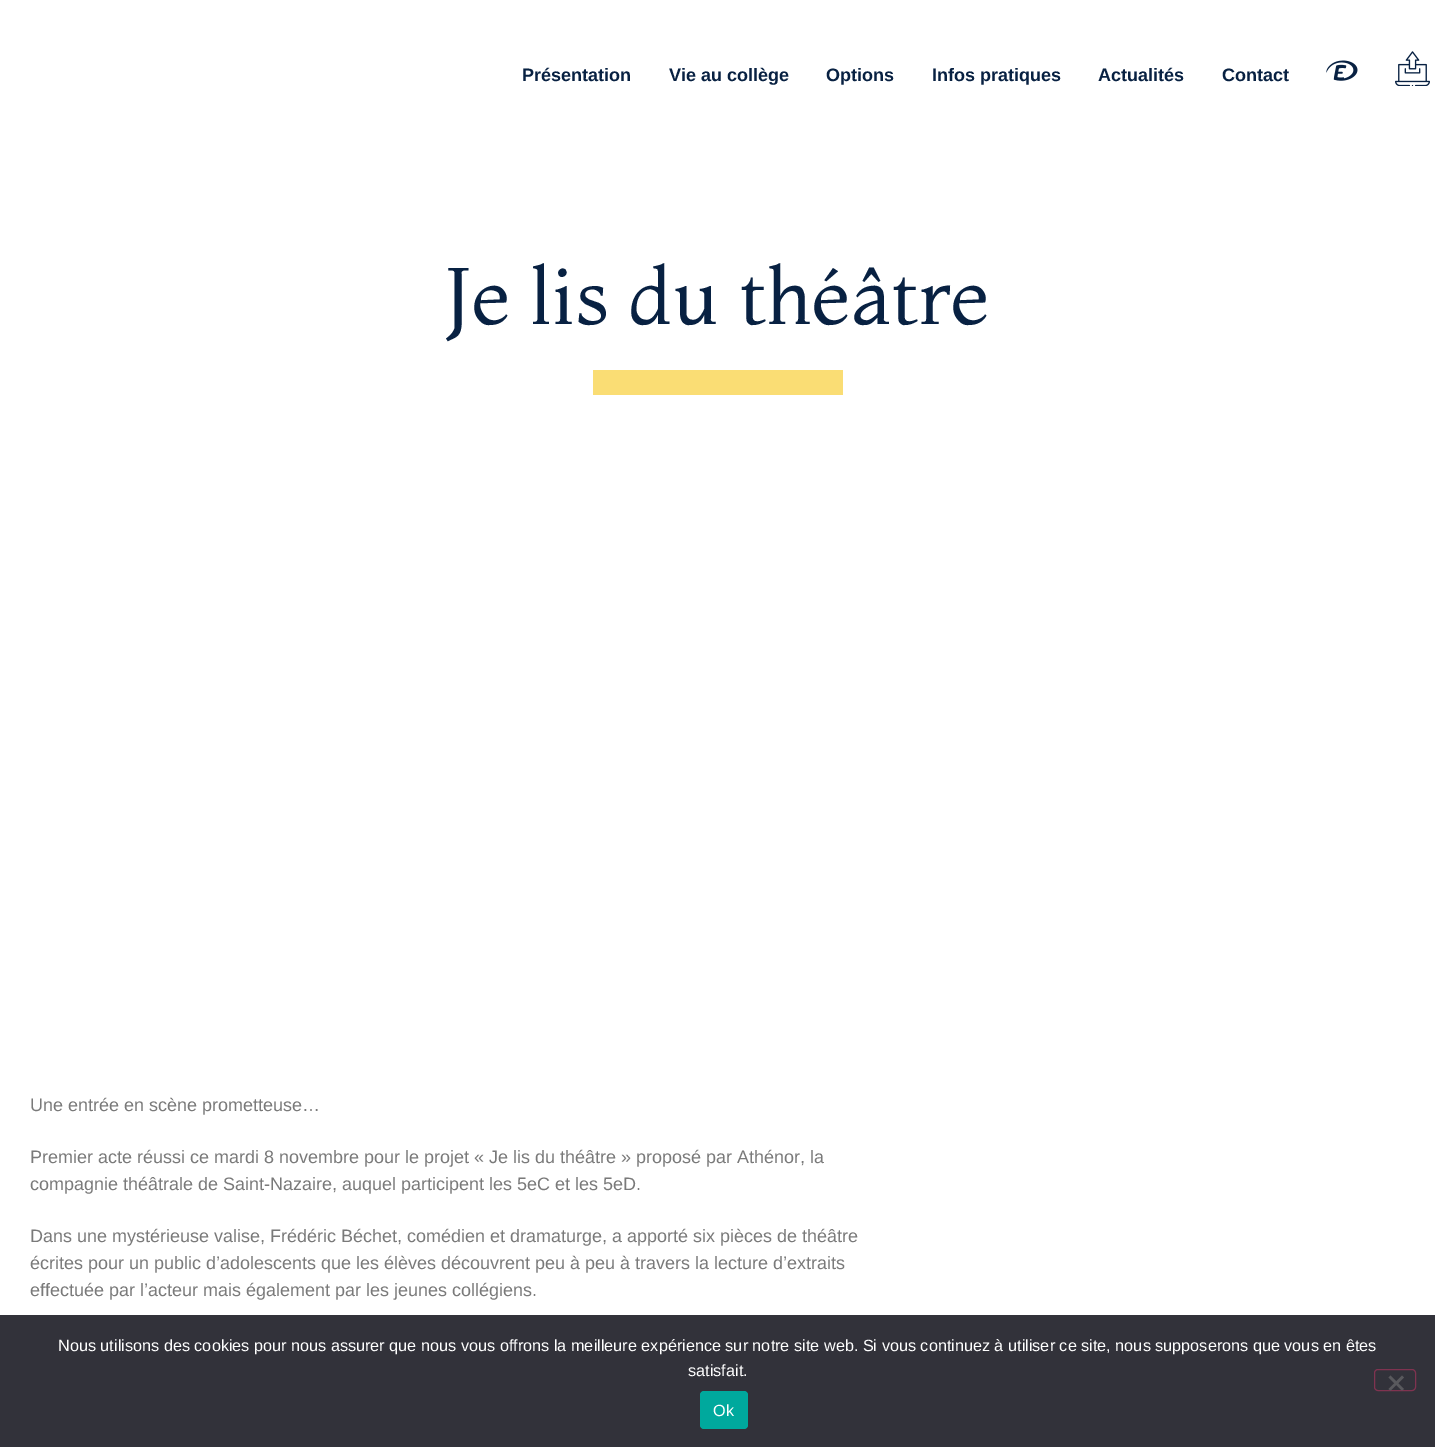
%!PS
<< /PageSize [1435 1447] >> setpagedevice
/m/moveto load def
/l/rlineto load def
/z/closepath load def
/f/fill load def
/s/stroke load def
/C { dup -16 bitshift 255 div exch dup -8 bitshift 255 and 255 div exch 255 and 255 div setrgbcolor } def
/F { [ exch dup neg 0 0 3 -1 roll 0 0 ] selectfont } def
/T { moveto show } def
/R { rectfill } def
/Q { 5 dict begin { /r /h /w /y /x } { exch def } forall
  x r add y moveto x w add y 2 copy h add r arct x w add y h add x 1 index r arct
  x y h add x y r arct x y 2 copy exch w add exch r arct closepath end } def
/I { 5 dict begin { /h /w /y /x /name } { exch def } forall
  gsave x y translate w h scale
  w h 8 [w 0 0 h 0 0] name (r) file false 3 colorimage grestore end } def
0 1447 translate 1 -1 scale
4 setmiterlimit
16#FFFFFF C
0 0 1435 1447 R
/LiberationSans-Bold 18 F
16#082142 C
(Présentation) 522 81 T
(Vie au collège) 669 81 T
(Options) 826 81 T
(Infos pratiques) 932 81 T
(Actualités) 1098 81 T
(Contact) 1222 81 T
(1.rgb) 1326 60 32 21 I
(2.rgb) 1395 51 35 35 I
/Montaga-Regular 80 F
(Je lis du théâtre) 445 324 T
16#FADD74 C
593 370 250 25 R
/LiberationSans-Regular 18 F
16#7A7A7A C
(Une entrée en scène prometteuse…) 30 1111 T
(Premier acte réussi ce mardi 8 novembre pour le projet « Je lis du théâtre » proposé par Athénor, la) 30 1163 T
(compagnie théâtrale de Saint-Nazaire, auquel participent les 5eC et les 5eD.) 30 1190 T
(Dans une mystérieuse valise, Frédéric Béchet, comédien et dramaturge, a apporté six pièces de théâtre) 30 1242 T
(écrites pour un public d’adolescents que les élèves découvrent peu à peu à travers la lecture d’extraits) 30 1269 T
(effectuée par l’acteur mais également par les jeunes collégiens.) 30 1296 T
16#32323A C
0 1315 1435 132 R
/LiberationSans-Regular 16.25 F
16#FFFFFF C
(Nous utilisons des cookies pour nous assurer que nous vous offrons la meilleure expérience sur notre site web. Si vous continuez à utiliser ce site, nous supposerons que vous en êtes) 58 1351 T
(satisfait.) 688 1376 T
16#7F3350 C
1374.5 1369.5 41 21 3.5 Q s
16#59595D C
1402 1375.5 m 2 2 l -13.5 13 l -2 -1.5 l z f
1388.5 1377.5 m 2 -2 l 13.5 13.5 l -2 1.5 l z f
16#00A99D C
700 1391 48 38 4 Q f
16#FFFFFF C
(Ok) 713 1416 T
showpage
